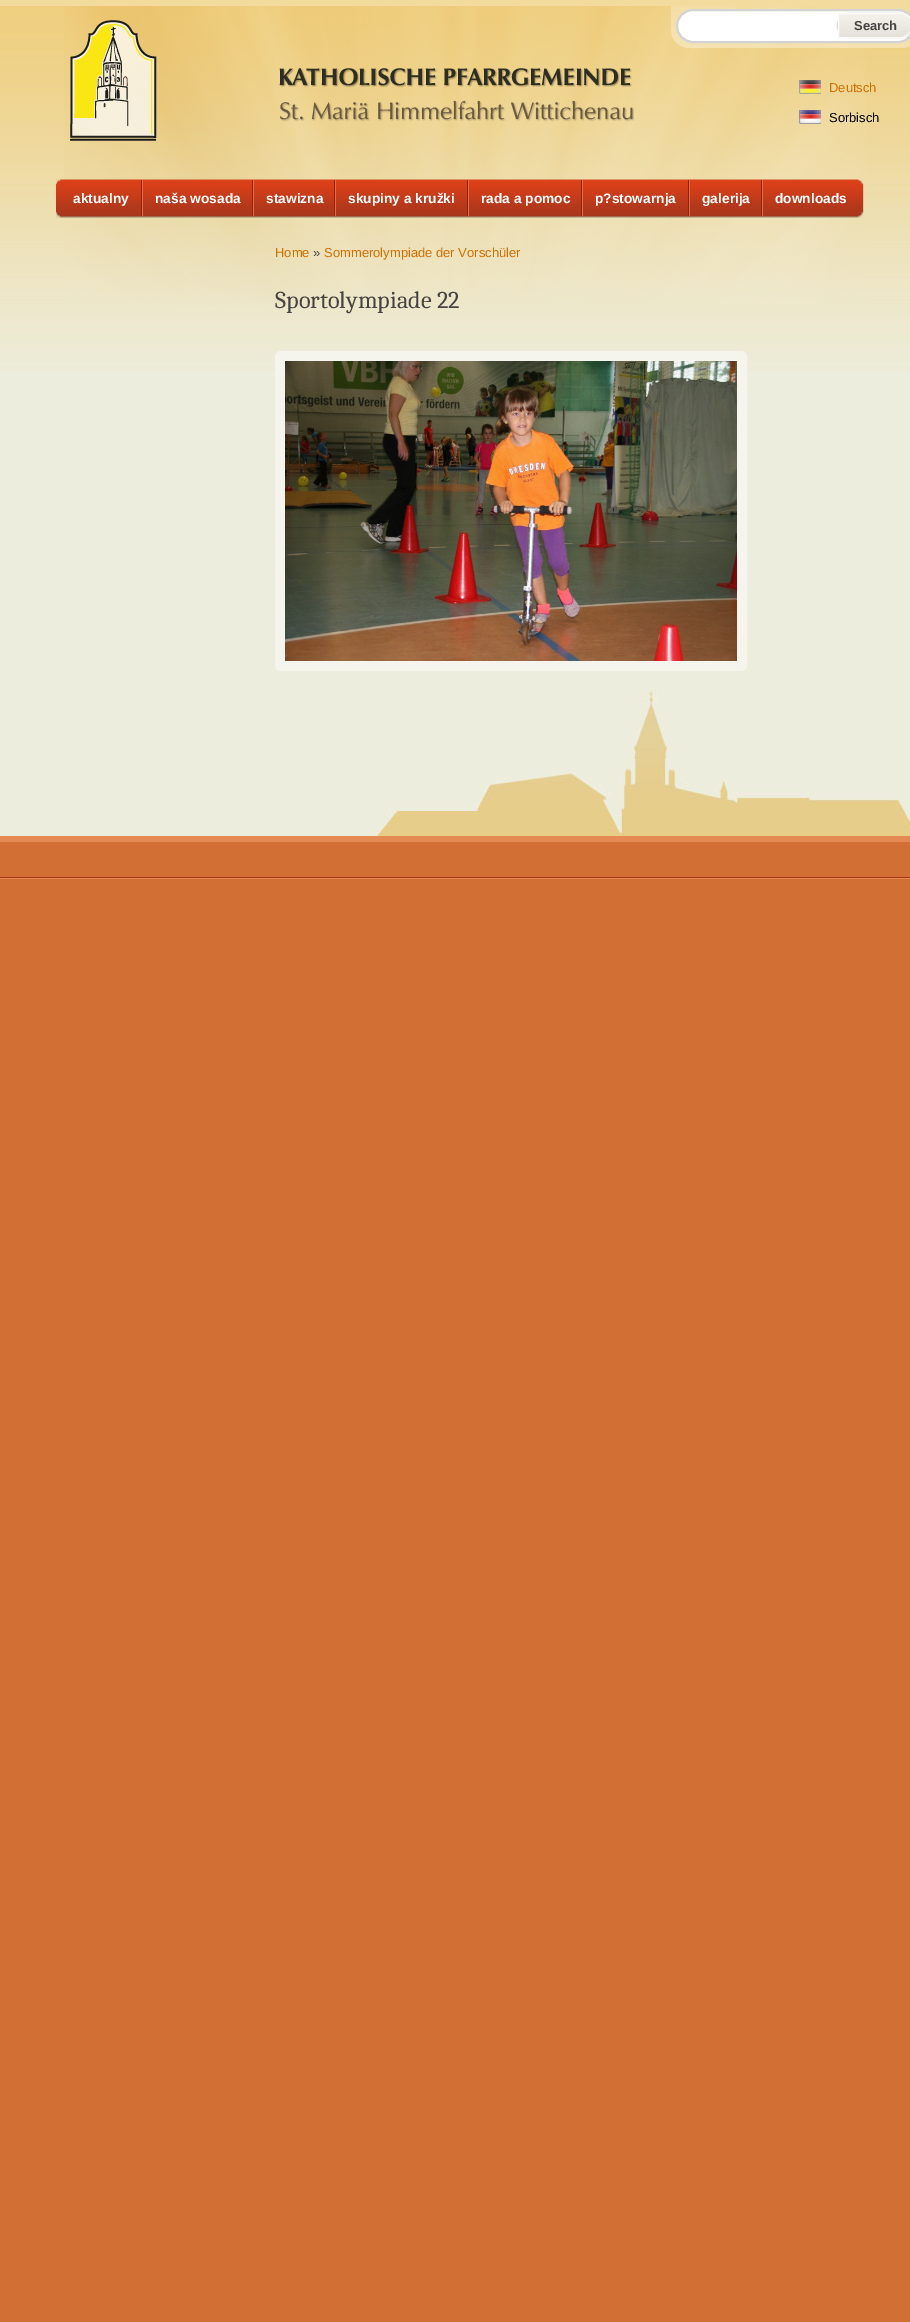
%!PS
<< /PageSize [910 2322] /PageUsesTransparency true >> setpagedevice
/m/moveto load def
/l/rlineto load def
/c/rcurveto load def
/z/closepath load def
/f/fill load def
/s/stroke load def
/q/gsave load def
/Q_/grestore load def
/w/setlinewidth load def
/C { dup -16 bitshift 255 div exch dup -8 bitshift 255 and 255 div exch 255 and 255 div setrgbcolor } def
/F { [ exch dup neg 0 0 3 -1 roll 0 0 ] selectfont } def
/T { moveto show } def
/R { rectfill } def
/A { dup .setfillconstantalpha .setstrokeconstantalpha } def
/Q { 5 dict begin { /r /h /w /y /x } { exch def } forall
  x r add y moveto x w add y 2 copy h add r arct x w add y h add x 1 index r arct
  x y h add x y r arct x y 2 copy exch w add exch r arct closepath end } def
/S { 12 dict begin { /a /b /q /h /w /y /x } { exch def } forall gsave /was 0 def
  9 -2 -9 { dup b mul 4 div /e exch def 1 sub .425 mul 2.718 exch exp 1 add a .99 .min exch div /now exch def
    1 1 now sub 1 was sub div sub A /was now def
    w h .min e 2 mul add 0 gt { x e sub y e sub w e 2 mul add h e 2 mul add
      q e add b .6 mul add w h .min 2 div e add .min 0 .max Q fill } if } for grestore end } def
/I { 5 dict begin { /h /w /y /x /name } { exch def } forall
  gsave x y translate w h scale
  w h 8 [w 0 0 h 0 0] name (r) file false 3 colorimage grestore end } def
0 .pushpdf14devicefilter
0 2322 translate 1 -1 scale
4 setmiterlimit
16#D16F34 C
0 0 910 2322 R
16#F2DB9D C
0 0 910 6 R
16#EDEDDD C
0 372 910 464 R
(1.rgb) 0 6 910 366 I
(2.rgb) 64 6 802 299 I
(3.rgb) 70 20 564 121 I
(4.rgb) 671 6 239 42 I
16#FFFFFF C
677 10 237 32 16 Q q f Q_
16#D3D3D3 C
2 w
s
837 13 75 25 12.5 .5 1 S
q
838 13 m 62.5 0 l 7 0 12.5 5.5 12.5 12.5 c 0 7 -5.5 12.5 -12.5 12.5 c -62.5 0 l z clip newpath
q 839 14 m 71 0 l 0 23 l -71 0 l z clip newpath
<< /ShadingType 2 /ColorSpace /DeviceRGB /Coords [876 14 876 37] /Extend [true true] /Function << /FunctionType 2 /Domain [0 1] /C0 [.957 .949 .922] /C1 [.898 .886 .859] /N 1 >> >> shfill Q_
Q_
16#FAFAF6 C
1 w
838.5 13.5 m 62 0 l 6.5 0 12 5.5 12 12 c 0 6.5 -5.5 12 -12 12 c -62 0 l z s
/LiberationSans-Bold 13 F
16#464441 C
(Search) 854 30 T
(5.rgb) 799 80 22 14 I
/LiberationSans-Regular 13 F
16#D16E00 C
(Deutsch) 829 92 T
(6.rgb) 799 110 22 14 I
16#000000 C
(Sorbisch) 829 122 T
(7.rgb) 56 179 86 39 I
16#8C260E C
141 180 1 36 R
/LiberationSans-Bold 13.75 F
16#FFFFFF C
(aktualny) 73 203 T
(8.rgb) 142 179 111 39 I
16#8C260E C
252 180 1 36 R
16#EB6745 C
142 180 1 36 R
16#FFFFFF C
(naša wosada) 155 203 T
(9.rgb) 253 179 82 39 I
16#8C260E C
334 180 1 36 R
16#EB6745 C
253 180 1 36 R
16#FFFFFF C
(stawizna) 266 203 T
(10.rgb) 335 179 133 39 I
16#8C260E C
467 180 1 36 R
16#EB6745 C
335 180 1 36 R
16#FFFFFF C
(skupiny a kružki) 348 203 T
(11.rgb) 468 179 114 39 I
16#8C260E C
581 180 1 36 R
16#EB6745 C
468 180 1 36 R
16#FFFFFF C
(rada a pomoc) 481 203 T
(12.rgb) 582 179 107 39 I
16#8C260E C
688 180 1 36 R
16#EB6745 C
582 180 1 36 R
16#FFFFFF C
(p?stowarnja) 595 203 T
(13.rgb) 689 179 73 39 I
16#8C260E C
761 180 1 36 R
16#EB6745 C
689 180 1 36 R
16#FFFFFF C
(galerija) 702 203 T
(14.rgb) 762 179 102 39 I
16#EB6745 C
762 180 1 36 R
16#FFFFFF C
(downloads) 775 203 T
/LiberationSans-Regular 13 F
16#D16E00 C
(Home) 275 257 T
16#464441 C
(») 313 257 T
16#D16E00 C
(Sommerolympiade der Vorschüler) 324 257 T
/Caladea-Regular 24.25 F
16#464441 C
(Sportolympiade 22) 275 308 T
16#F5F5ED C
10 w
280 356 462 310 1 Q s
(15.rgb) 285 361 452 300 I
(16.rgb) 371 687 539 149 I
16#E68A53 C
0 836 910 6 R
(17.rgb) 0 877 910 2 I
.poppdf14devicefilter showpage
